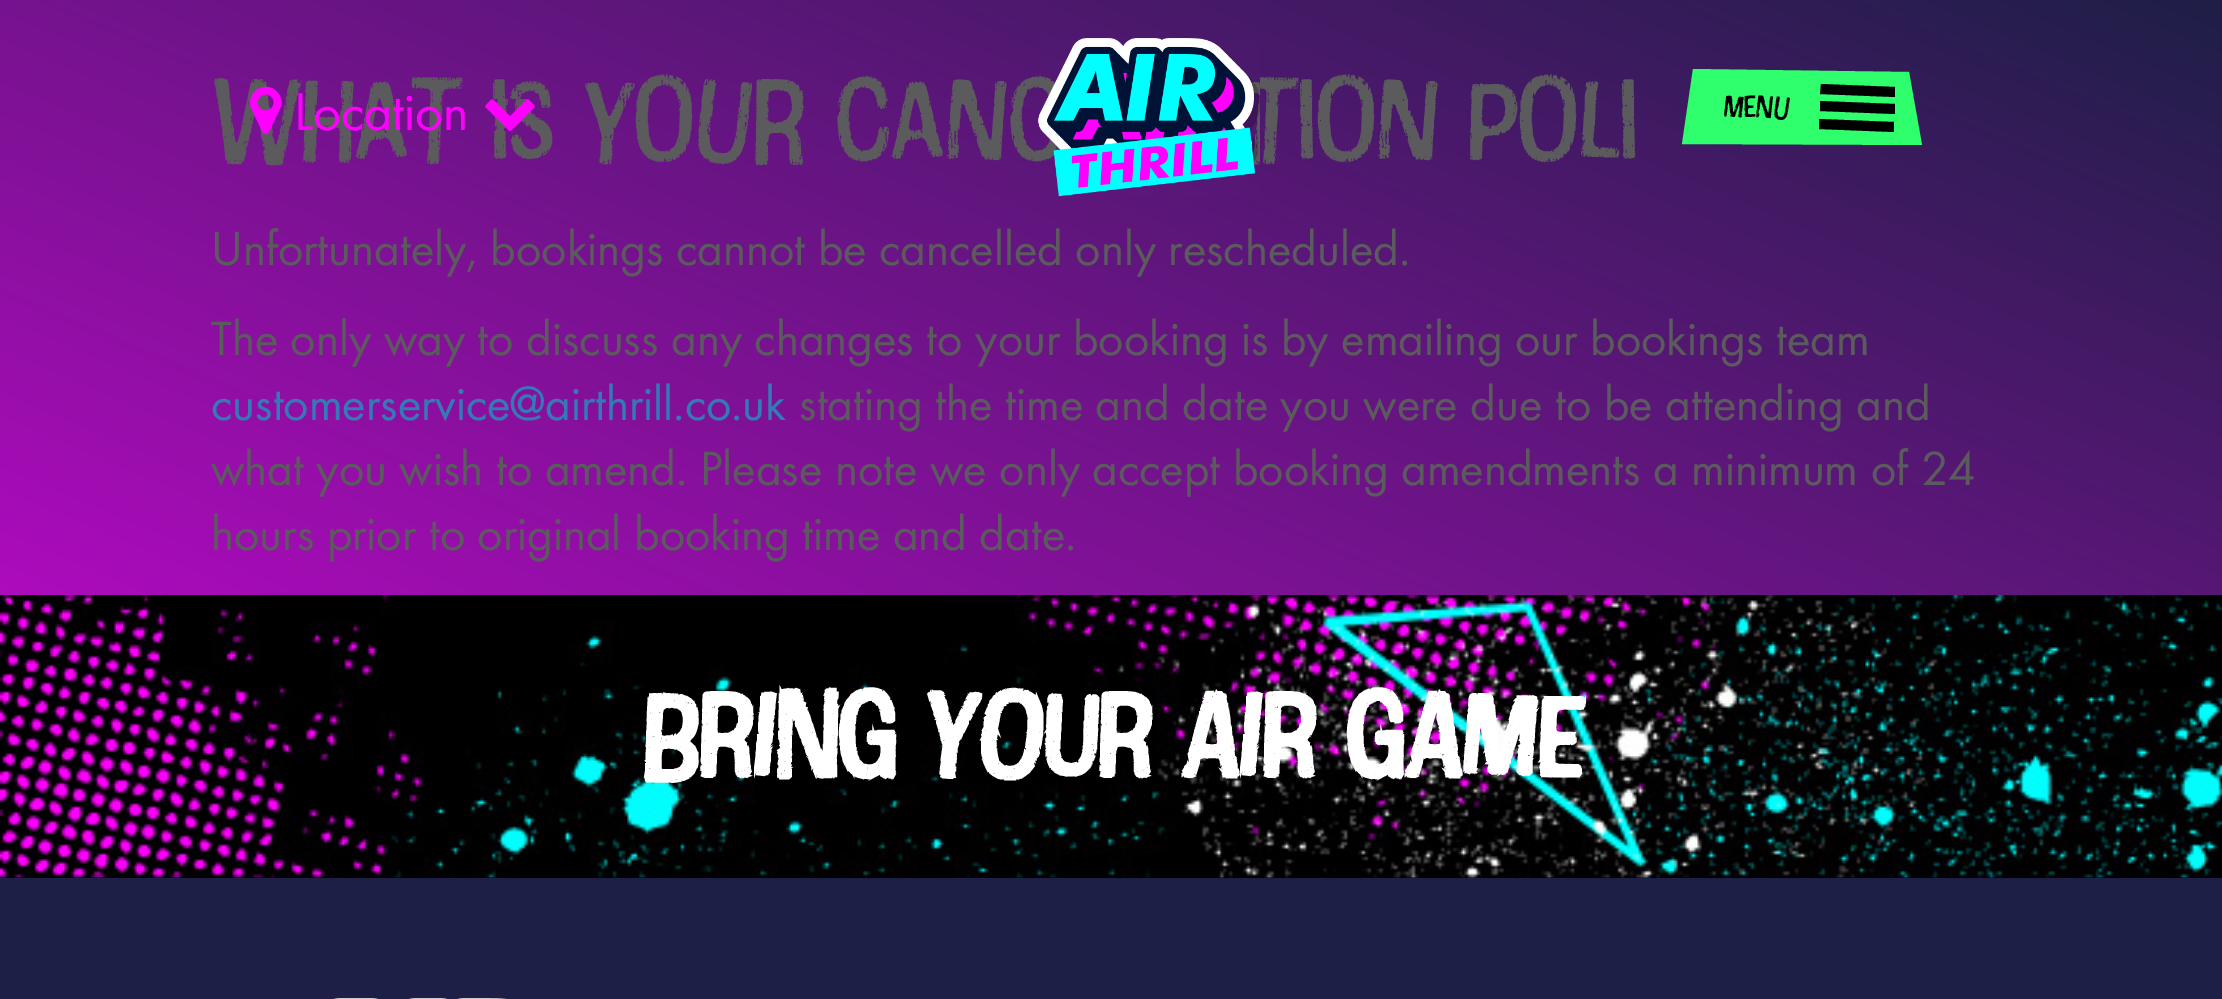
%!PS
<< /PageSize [2222 999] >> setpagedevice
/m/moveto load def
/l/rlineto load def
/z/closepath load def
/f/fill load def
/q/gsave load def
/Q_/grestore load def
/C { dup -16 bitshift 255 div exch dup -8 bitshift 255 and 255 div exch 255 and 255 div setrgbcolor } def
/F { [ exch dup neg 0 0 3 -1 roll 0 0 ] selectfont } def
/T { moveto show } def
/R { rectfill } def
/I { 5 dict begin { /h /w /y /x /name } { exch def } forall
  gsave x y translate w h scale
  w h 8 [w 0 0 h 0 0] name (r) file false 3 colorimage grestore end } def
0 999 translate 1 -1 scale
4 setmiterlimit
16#FFFFFF C
0 0 2222 999 R
q 0 0 m 2222 0 l 0 595 l -2222 0 l z clip newpath
<< /ShadingType 2 /ColorSpace /DeviceRGB /Coords [1561 -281 662 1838] /Extend [true true] /Function << /FunctionType 3 /Domain [0 1] /Functions [<< /FunctionType 2 /Domain [0 1] /C0 [.118 .122 .278] /C1 [1 0 1] /N 1 >> << /FunctionType 2 /Domain [0 1] /C0 [1 0 1] /C1 [1 0 1] /N 1 >>] /Bounds [.96] /Encode [0 1 0 1] >> >> shfill Q_
/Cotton-Regular 126 F
16#5B5B5E C
(What is your canc) 211 165 T
(tion poli) 1244 165 T
/Futura-Regular 50 F
(Unfortunately, bookings cannot be cancelled only rescheduled.) 211 265 T
(The only way to discuss any changes to your booking is by emailing our bookings team) 211 355 T
16#337AB7 C
(customerservice@airthrill.co.uk) 211 420 T
16#5B5B5E C
(stating the time and date you were due to be attending and) 799 420 T
(what you wish to amend. Please note we only accept booking amendments a minimum of 24) 211 485 T
(hours prior to original booking time and date.) 211 550 T
(1.rgb) 250 86 32 48 I
/Futura-Regular 55 F
16#FF00FF C
(Location) 294 130 T
(2.rgb) 485 99 50 32 I
(3.rgb) 1038 38 222 159 I
16#2FFE6D C
1693 69 m 216 3 l 13 73 l -240 -1 l z f
/Cotton-Regular 35 F
16#000000 C
q 1723 118 translate 2 rotate 0 0 m (Menu) show Q_
1821 84 m 74 3 l 0 10 l -75 -3 l z f
1820 101 m 75 3 l 0 10 l -75 -3 l z f
1819 119 m 75 3 l 0 10 l -75 -3 l z f
0 877 2222 1 R
(4.rgb) 0 595 2222 283 I
/Cotton-Bold 130 F
16#FFFFFF C
(BRING YOUR AIR GAME) 641 780 T
16#1E1F47 C
0 878 2222 121 R
(5.rgb) 333 998 174 1 I
showpage
